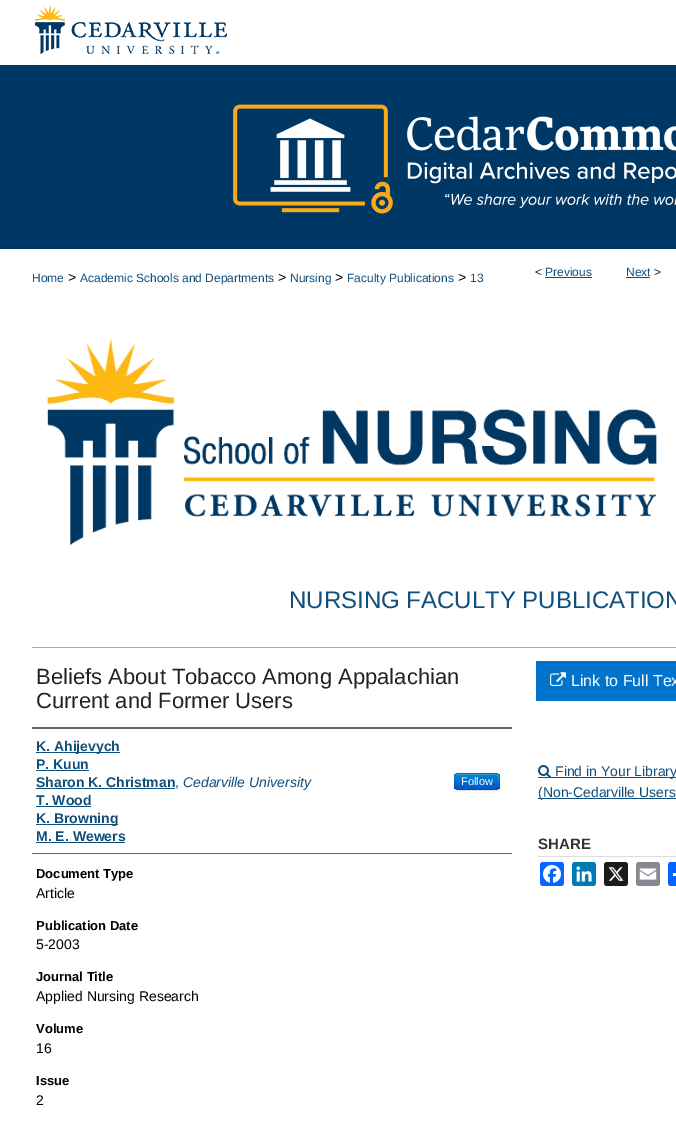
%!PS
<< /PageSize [676 1132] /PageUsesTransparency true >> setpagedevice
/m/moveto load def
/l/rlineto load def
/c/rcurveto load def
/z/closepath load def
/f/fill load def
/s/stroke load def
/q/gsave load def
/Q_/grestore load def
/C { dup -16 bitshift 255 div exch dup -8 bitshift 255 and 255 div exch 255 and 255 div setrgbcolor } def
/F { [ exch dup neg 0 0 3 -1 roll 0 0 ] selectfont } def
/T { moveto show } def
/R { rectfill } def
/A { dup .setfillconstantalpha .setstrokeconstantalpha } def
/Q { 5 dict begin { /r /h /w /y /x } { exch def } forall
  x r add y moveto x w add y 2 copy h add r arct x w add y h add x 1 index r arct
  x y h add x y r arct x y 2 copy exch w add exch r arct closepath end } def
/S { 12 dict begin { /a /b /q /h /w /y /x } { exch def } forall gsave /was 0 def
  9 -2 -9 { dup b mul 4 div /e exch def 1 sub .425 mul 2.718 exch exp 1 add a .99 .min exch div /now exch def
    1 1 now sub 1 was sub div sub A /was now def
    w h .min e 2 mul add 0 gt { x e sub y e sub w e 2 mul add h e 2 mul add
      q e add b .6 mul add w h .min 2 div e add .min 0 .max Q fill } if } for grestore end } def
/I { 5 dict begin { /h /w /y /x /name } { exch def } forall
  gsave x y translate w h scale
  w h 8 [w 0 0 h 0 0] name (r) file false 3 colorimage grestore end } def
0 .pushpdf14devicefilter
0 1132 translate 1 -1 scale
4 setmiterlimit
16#FFFFFF C
0 0 676 1132 R
16#003865 C
0 65 676 184 R
(1.rgb) 35 5 192 49 I
(2.rgb) 233 104 443 110 I
/LiberationSans-Regular 12 F
16#222222 C
(<) 535 276 T
16#104E7B C
(Previous) 545 276 T
545 277 47 1 R
(Next) 626 276 T
626 277 24 1 R
16#222222 C
(>) 654 276 T
16#104E7B C
(Home) 32 282 T
/LiberationSans-Regular 14 F
16#000000 C
(>) 68 282 T
/LiberationSans-Regular 12 F
16#104E7B C
(Academic Schools and Departments) 80 282 T
/LiberationSans-Regular 14 F
16#000000 C
(>) 278 282 T
/LiberationSans-Regular 12 F
16#104E7B C
(Nursing) 290 282 T
/LiberationSans-Regular 14 F
16#000000 C
(>) 335 282 T
/LiberationSans-Regular 12 F
16#104E7B C
(Faculty Publications) 347 282 T
/LiberationSans-Regular 14 F
16#000000 C
(>) 458 282 T
/LiberationSans-Regular 12 F
16#104E7B C
(13) 470 282 T
(3.rgb) 47 338 610 207 I
/LiberationSans-Regular 24 F
(NURSING FACULTY PUBLICATION) 289 608 T
16#AAAAAA C
32 647 644 1 R
/LiberationSans-Regular 22 F
16#222222 C
(Beliefs About Tobacco Among Appalachian) 36 684 T
(Current and Former Users) 36 708 T
16#666666 C
32 727 480 2 R
32 853 480 1 R
16#104E7B C
36 752 84 1 R
/LiberationSans-Bold 14 F
(K. Ahijevych) 36 751 T
(P. Kuun) 36 769 T
36 770 53 1 R
(Sharon K. Christman) 36 787 T
36 788 139 1 R
/LiberationSans-Regular 14 F
(,) 175 787 T
/LiberationSans-Italic 14 F
(Cedarville University) 183 787 T
16#000000 C
454 774 46 17 4 1 .05 S
16#0074CC C
454 773 46 17 4 Q f
q
454 773 46 17 4 Q clip newpath
q 454 774 m 46 0 l 0 15 l -46 0 l z clip newpath
<< /ShadingType 2 /ColorSpace /DeviceRGB /Coords [477 774 477 789] /Extend [true true] /Function << /FunctionType 2 /Domain [0 1] /C0 [0 .533 .8] /C1 [0 .333 .8] /N 1 >> >> shfill Q_
Q_
0.2 A
16#FFFFFF C
458 775 m 25 0 l 14 0 16 -4 16 11 c 0 -11 3 -12 -9 -12 c -26 0 l -7 0 -9 -1 -9 6 c 0 7 l 0 -3 -1 -12 3 -12 c z f
0.25 A
16#000000 C
498.5 788.5 m -.5 .5 -1.5 1 -2.5 1 c -38 0 l -1 0 -2 -.5 -2.5 -1 c s
0.1 A
455.5 788.5 m -1.5 -2 -1 -5 -1 -7 c 0 -9 .5 -8 10 -8 c 25 0 l 9.5 0 10 -1 10 8 c 0 2 .5 5 -1 7 c s
/LiberationSans-Regular 11 F
1 A
16#FFFFFF C
(Follow) 461 785 T
/LiberationSans-Bold 14 F
16#104E7B C
(T. Wood) 36 805 T
36 806 55 1 R
36 824 82 1 R
(K. Browning) 36 823 T
(M. E. Wewers) 36 841 T
36 842 89 1 R
/LiberationSans-Bold 13 F
16#000000 C
(Document Type) 36 878 T
/LiberationSans-Regular 14 F
(Article) 36 898 T
/LiberationSans-Bold 13 F
(Publication Date) 36 930 T
/LiberationSans-Regular 14 F
(5-2003) 36 949 T
/LiberationSans-Bold 13 F
(Journal Title) 36 981 T
/LiberationSans-Regular 14 F
(Applied Nursing Research) 36 1001 T
/LiberationSans-Bold 13 F
(Volume) 36 1033 T
/LiberationSans-Regular 14 F
(16) 36 1053 T
/LiberationSans-Bold 13 F
(Issue) 36 1085 T
/LiberationSans-Regular 14 F
(2) 36 1105 T
16#0074CC C
536 661 140 40 R
(4.rgb) 550 672 16 14 I
/LiberationSans-Regular 16 F
16#FFFFFF C
(Link to Full Tex) 571 686 T
16#104E7B C
538 777 138 1 R
(5.rgb) 538 765 13 12 I
/LiberationSans-Regular 14 F
(Find in Your Library) 555 776 T
538 798 138 1 R
(\(Non-Cedarville Users) 538 797 T
16#DDDDDD C
538 856 138 1 R
/LiberationSans-Bold 15 F
16#333333 C
(SHARE) 538 849 T
16#0866FF C
540 862 24 24 3 Q f
(6.rgb) 543 865 18 18 I
16#007BB5 C
572 862 24 24 3 Q f
(7.rgb) 576 866 16 16 I
16#1A1A1A C
604 862 24 24 3 Q f
(8.rgb) 608 867 16 14 I
16#888990 C
636 862 24 24 3 Q f
(9.rgb) 639 868 18 12 I
16#0166FF C
668 862 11 24 3 Q f
16#FFFFFF C
673 873 3 3 R
.poppdf14devicefilter showpage
